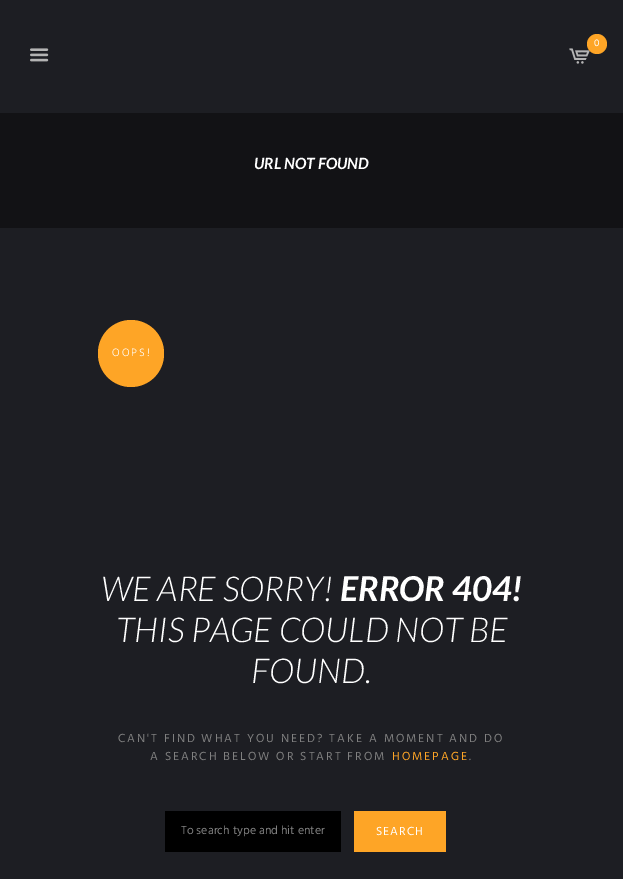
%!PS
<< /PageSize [623 879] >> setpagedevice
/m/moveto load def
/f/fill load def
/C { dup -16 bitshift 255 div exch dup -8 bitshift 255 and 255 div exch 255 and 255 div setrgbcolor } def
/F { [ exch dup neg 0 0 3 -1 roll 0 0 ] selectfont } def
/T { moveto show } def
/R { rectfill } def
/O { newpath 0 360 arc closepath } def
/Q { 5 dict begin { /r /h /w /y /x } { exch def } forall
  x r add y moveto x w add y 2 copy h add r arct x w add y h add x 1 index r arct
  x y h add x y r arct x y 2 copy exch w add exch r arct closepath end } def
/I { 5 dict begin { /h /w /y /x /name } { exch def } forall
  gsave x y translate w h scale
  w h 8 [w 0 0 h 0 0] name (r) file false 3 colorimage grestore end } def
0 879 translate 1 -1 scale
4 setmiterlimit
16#1D1E23 C
0 0 623 879 R
(1.rgb) 569 48 21 16 I
16#FEA526 C
597 44 10 O f
/Hind-Regular 10 F
16#FFFFFF C
(0) 594 46 T
(2.rgb) 30 48 19 14 I
16#121215 C
0 113 623 115 R
/Lato-BoldItalic 15.5 F
16#FFFFFF C
(URL NOT FOUND) 254 169 T
16#FEA526 C
98 320 66 67 33 Q f
/Hind-Light 11 F
16#FFFFFF C
112 356 m 2 0 (OOPS!) ashow
/Lato-LightItalic 34.25 F
(WE ARE SORRY!) 101 601 T
/Lato-BoldItalic 34.25 F
(ERROR 404!) 340 601 T
/Lato-LightItalic 34.25 F
(THIS PAGE COULD NOT BE) 116 642 T
(FOUND.) 251 683 T
/Hind-Regular 12 F
16#808080 C
118 742 m 2 0 (CAN'T FIND WHAT YOU NEED? TAKE A MOMENT AND DO) ashow
150 760 m 2 0 (A SEARCH BELOW OR START FROM) ashow
16#FEA526 C
392 760 m 2 0 (HOMEPAGE) ashow
16#808080 C
469 760 m 2 0 (.) ashow
16#000000 C
165 811 176 41 R
16#808080 C
(To search type and hit enter) 181 834 T
16#FEA526 C
354 811 92 41 R
16#FFFFFF C
376 835 m 1 0 (SEARCH) ashow
showpage
